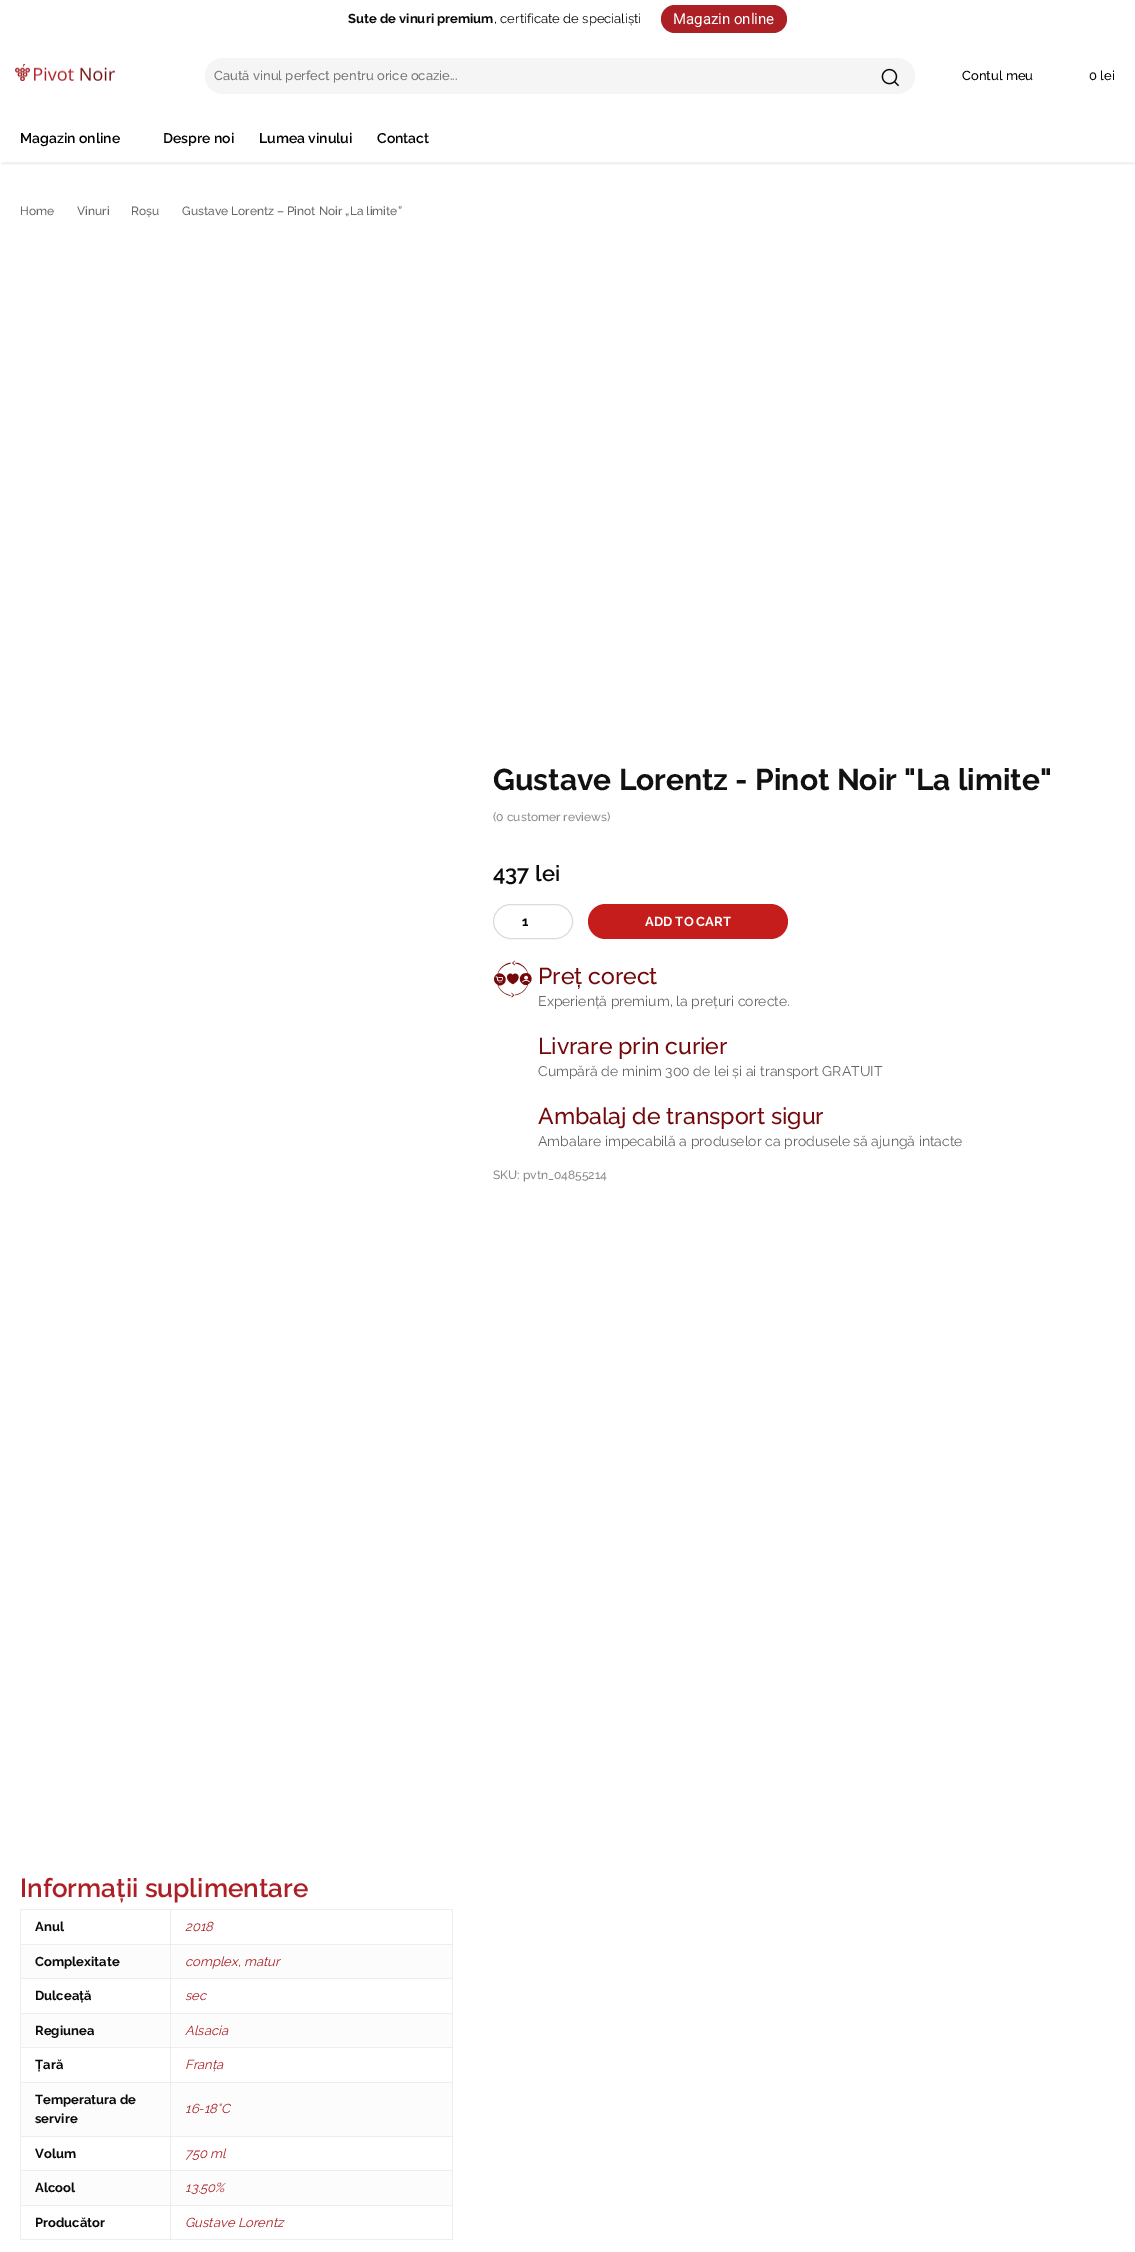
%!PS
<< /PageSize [1135 2252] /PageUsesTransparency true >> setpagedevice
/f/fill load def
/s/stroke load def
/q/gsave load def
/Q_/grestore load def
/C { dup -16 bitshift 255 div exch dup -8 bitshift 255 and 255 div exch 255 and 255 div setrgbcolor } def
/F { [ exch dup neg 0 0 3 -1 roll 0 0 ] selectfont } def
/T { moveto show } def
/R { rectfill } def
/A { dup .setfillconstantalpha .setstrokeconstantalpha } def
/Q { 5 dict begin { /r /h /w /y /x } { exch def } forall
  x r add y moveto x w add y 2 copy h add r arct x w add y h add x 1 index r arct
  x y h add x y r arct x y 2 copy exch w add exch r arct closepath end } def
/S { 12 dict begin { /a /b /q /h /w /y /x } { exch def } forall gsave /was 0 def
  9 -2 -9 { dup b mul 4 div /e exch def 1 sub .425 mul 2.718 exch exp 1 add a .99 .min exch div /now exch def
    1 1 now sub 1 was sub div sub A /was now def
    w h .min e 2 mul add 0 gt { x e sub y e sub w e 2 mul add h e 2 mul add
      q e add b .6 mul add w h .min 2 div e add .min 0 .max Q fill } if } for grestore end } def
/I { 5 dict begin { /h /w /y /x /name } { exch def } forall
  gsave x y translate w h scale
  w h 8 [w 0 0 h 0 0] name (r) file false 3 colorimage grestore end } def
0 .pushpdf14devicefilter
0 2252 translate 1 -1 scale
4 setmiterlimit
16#FFFFFF C
0 0 1135 2252 R
/Raleway-Bold 13 F
16#0A0A0A C
(Sute de vinuri premium) 348 23 T
/Raleway-Regular 13 F
(, certificate de specialiști) 494 23 T
16#AC2025 C
661 5 126 28 14 Q f
/Roboto-Regular 15 F
16#FFFFFF C
(Magazin online) 673 24 T
(1.rgb) 15 64 100 17 I
16#F5F5F5 C
205 58 710 36 18 Q f
/Raleway-Medium 13 F
16#757575 C
(Caută vinul perfect pentru orice ocazie...) 214 80 T
(2.rgb) 881 68 18 19 I
16#000000 C
(Contul meu) 962 80 T
(0 lei) 1089 80 T
q
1 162 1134 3 rectclip
1 117 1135 48 0 1.5 .05 S
Q_
/Raleway-SemiBold 14 F
(Magazin online) 20 143 T
(Despre noi) 163 143 T
(Lumea vinului) 259 143 T
(Contact) 377 143 T
/Raleway-Medium 12 F
16#666666 C
(Home) 20 215 T
(Vinuri) 77 215 T
(Roșu) 131 215 T
(Gustave Lorentz – Pinot Noir „La limite”) 182 215 T
/Raleway-Bold 30 F
16#111111 C
(Gustave Lorentz - Pinot Noir "La limite") 493 790 T
/Raleway-Medium 12 F
16#898989 C
(\(0 customer reviews\)) 493 821 T
/Raleway-SemiBold 22 F
16#0A0A0A C
(437 lei) 493 881 T
16#DBDBDB C
493.5 904.5 79 34 17 Q s
/Raleway-Bold 13 F
16#000000 C
(1) 522 926 T
16#C51C1C C
588 904 200 35 17.5 Q f
16#FFFFFF C
(ADD TO CART) 645 926 T
(3.rgb) 494 960 38 38 I
/Raleway-Medium 23 F
16#74080A C
(Preț corect) 538 984 T
/Raleway-Regular 14 F
16#666666 C
(Experiență premium, la prețuri corecte.) 538 1006 T
/Raleway-Medium 23 F
16#74080A C
(Livrare prin curier) 538 1054 T
/Raleway-Regular 14 F
16#666666 C
(Cumpără de minim 300 de lei și ai transport GRATUIT) 538 1076 T
/Raleway-Medium 23 F
16#74080A C
(Ambalaj de transport sigur) 538 1124 T
/Raleway-Regular 14 F
16#666666 C
(Ambalare impecabilă a produselor ca produsele să ajungă intacte) 538 1146 T
/Raleway-Medium 12 F
16#898989 C
(SKU: pvtn_04855214) 493 1179 T
/Raleway-SemiBold 26 F
16#AC2025 C
(Informații suplimentare) 20 1897 T
16#EDEDED C
20 1909 433 1 R
452 1909 1 331 R
20 2239 433 1 R
20 1909 1 331 R
20 1944 433 1 R
/Raleway-Bold 13 F
16#0A0A0A C
(Anul) 35 1931 T
/Raleway-Italic 13 F
16#AC2025 C
(2018) 185 1931 T
16#FCFCFC C
21 1945 431 33 R
16#EDEDED C
20 1978 433 1 R
/Raleway-Bold 13 F
16#0A0A0A C
(Complexitate) 35 1966 T
/Raleway-Italic 13 F
16#AC2025 C
(complex, matur) 185 1966 T
16#EDEDED C
20 2013 433 1 R
/Raleway-Bold 13 F
16#0A0A0A C
(Dulceață) 35 2000 T
/Raleway-Italic 13 F
16#AC2025 C
(sec) 185 2000 T
16#FCFCFC C
21 2014 431 33 R
16#EDEDED C
20 2047 433 1 R
/Raleway-Bold 13 F
16#0A0A0A C
(Regiunea) 35 2035 T
/Raleway-Italic 13 F
16#AC2025 C
(Alsacia) 185 2035 T
16#EDEDED C
20 2082 433 1 R
/Raleway-Bold 13 F
16#0A0A0A C
(Țară) 35 2069 T
/Raleway-Italic 13 F
16#AC2025 C
(Franța) 185 2069 T
16#FCFCFC C
21 2083 431 53 R
16#EDEDED C
20 2136 433 1 R
/Raleway-Bold 13 F
16#0A0A0A C
(Temperatura de) 35 2104 T
(servire) 35 2123 T
/Raleway-Italic 13 F
16#AC2025 C
(16-18°C) 185 2113 T
16#EDEDED C
20 2170 433 1 R
/Raleway-Bold 13 F
16#0A0A0A C
(Volum) 35 2158 T
/Raleway-Italic 13 F
16#AC2025 C
(750 ml) 185 2158 T
16#FCFCFC C
21 2171 431 34 R
16#EDEDED C
20 2205 433 1 R
/Raleway-Bold 13 F
16#0A0A0A C
(Alcool) 35 2192 T
/Raleway-Italic 13 F
16#AC2025 C
(13.50%) 185 2192 T
16#EDEDED C
170 1909 1 331 R
/Raleway-Bold 13 F
16#0A0A0A C
(Producător) 35 2227 T
/Raleway-Italic 13 F
16#AC2025 C
(Gustave Lorentz) 185 2227 T
.poppdf14devicefilter showpage
